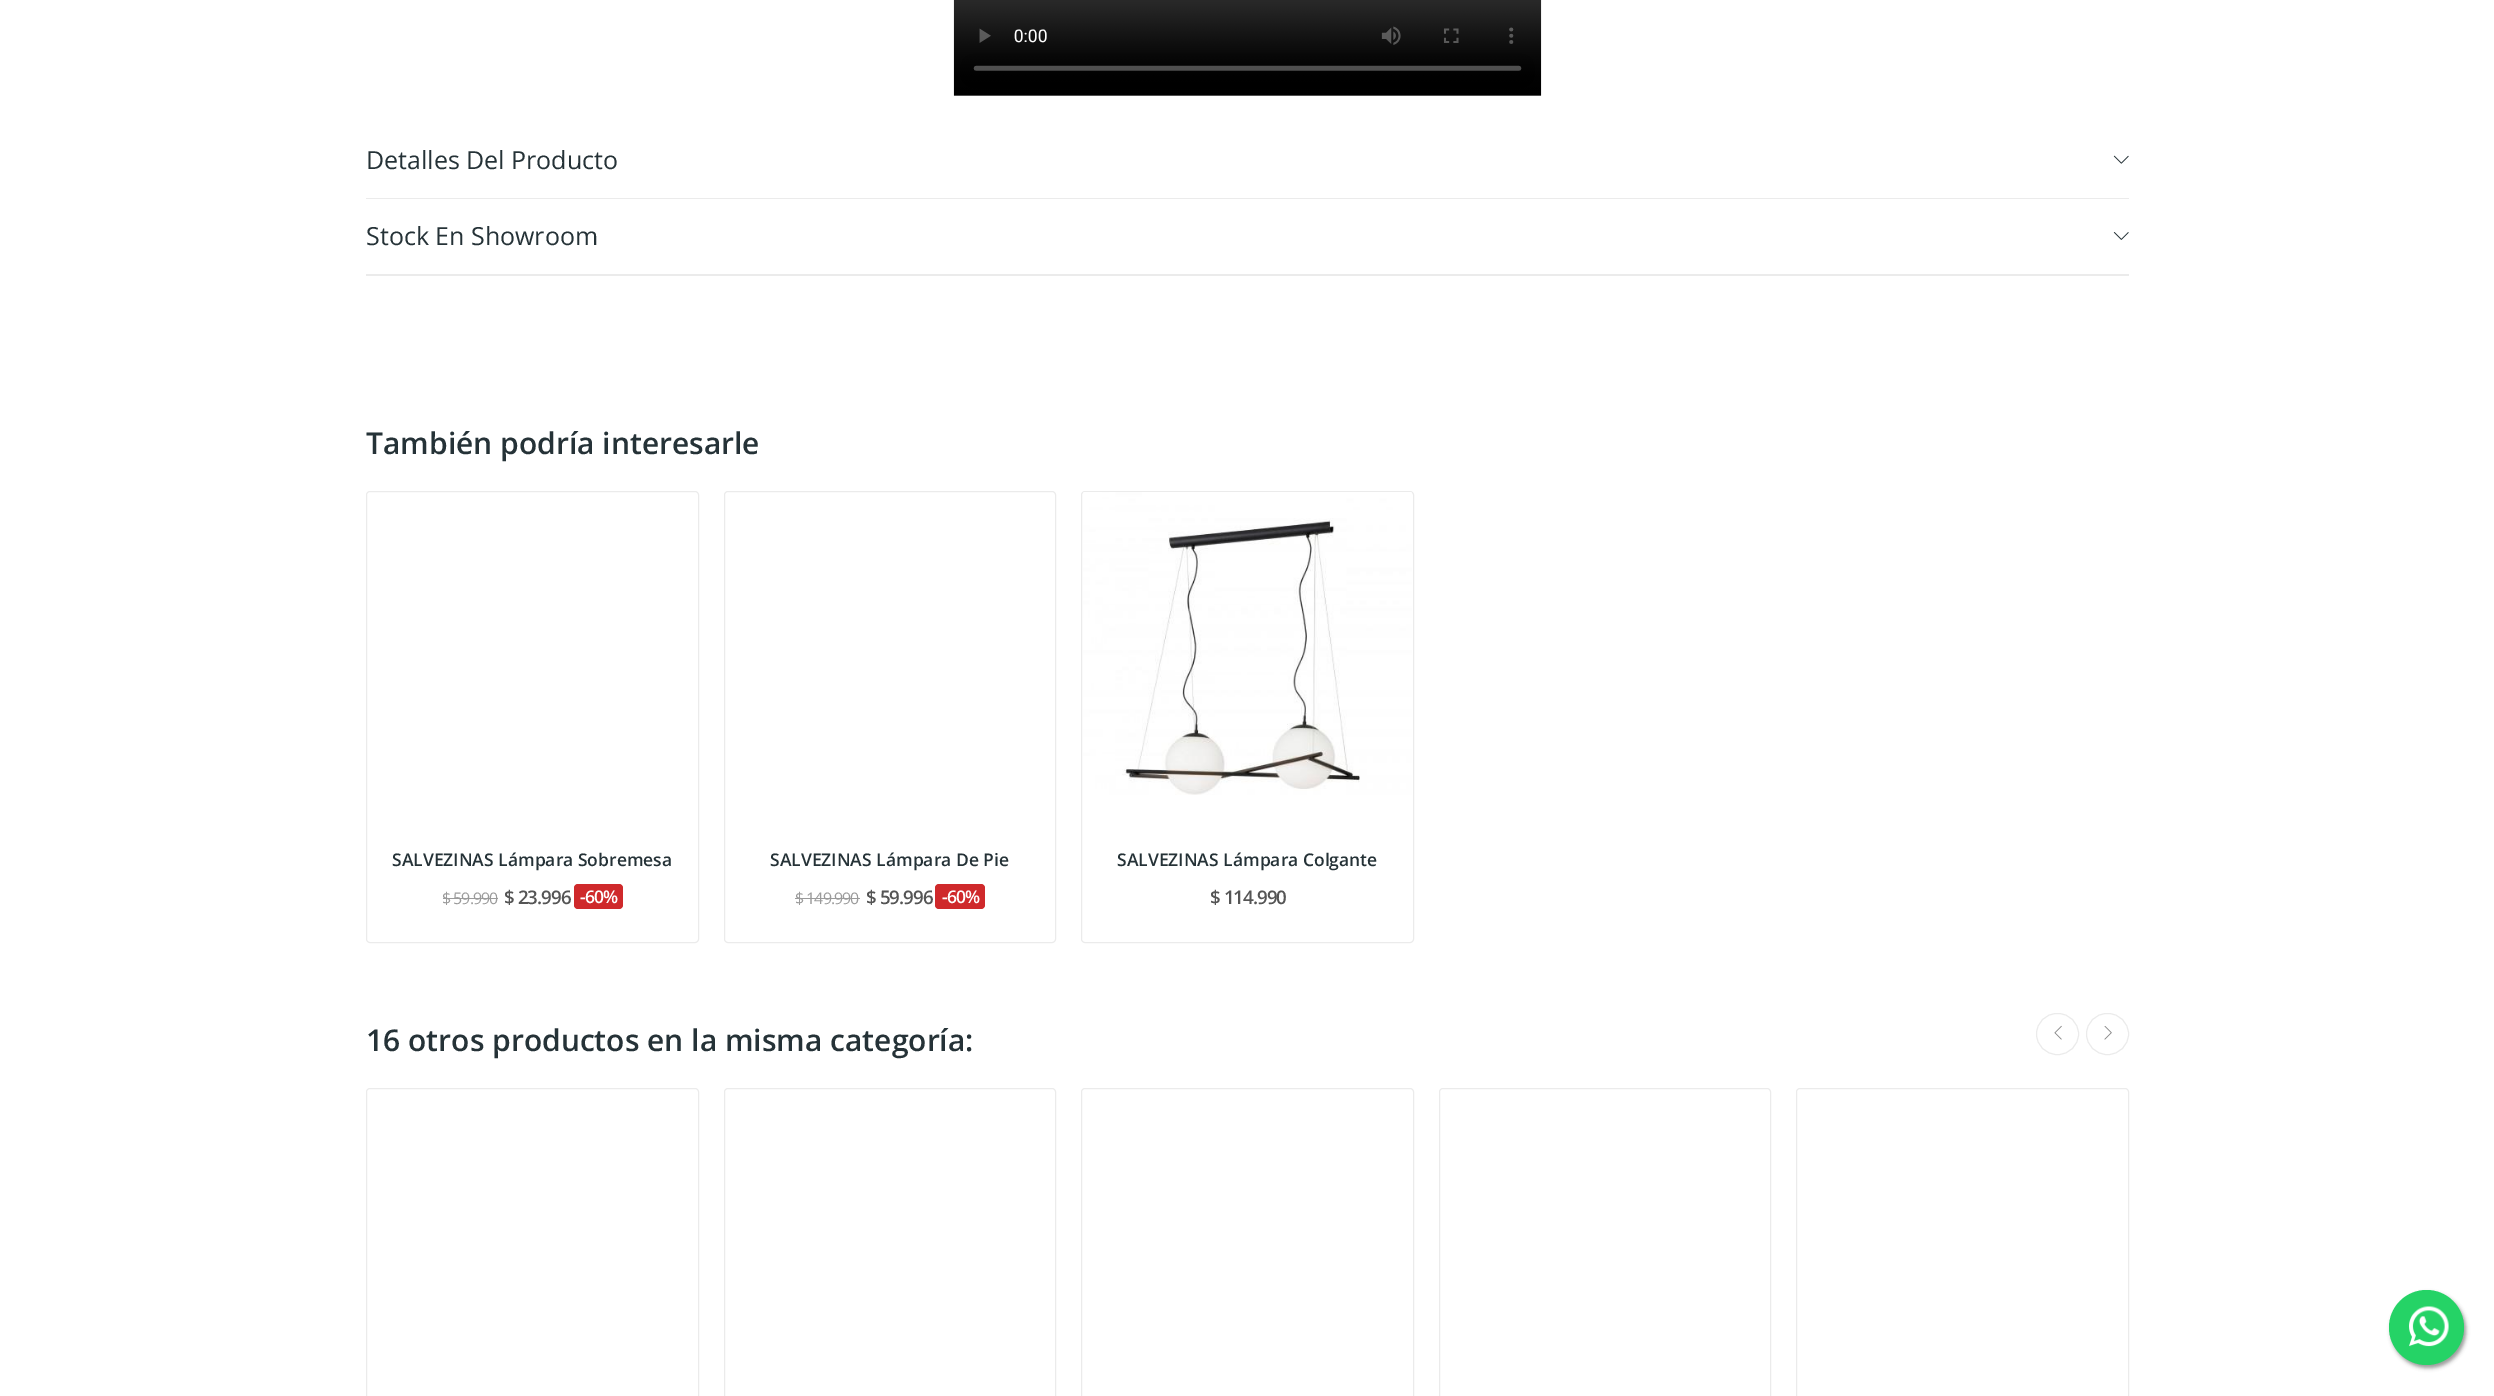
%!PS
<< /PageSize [2494 1396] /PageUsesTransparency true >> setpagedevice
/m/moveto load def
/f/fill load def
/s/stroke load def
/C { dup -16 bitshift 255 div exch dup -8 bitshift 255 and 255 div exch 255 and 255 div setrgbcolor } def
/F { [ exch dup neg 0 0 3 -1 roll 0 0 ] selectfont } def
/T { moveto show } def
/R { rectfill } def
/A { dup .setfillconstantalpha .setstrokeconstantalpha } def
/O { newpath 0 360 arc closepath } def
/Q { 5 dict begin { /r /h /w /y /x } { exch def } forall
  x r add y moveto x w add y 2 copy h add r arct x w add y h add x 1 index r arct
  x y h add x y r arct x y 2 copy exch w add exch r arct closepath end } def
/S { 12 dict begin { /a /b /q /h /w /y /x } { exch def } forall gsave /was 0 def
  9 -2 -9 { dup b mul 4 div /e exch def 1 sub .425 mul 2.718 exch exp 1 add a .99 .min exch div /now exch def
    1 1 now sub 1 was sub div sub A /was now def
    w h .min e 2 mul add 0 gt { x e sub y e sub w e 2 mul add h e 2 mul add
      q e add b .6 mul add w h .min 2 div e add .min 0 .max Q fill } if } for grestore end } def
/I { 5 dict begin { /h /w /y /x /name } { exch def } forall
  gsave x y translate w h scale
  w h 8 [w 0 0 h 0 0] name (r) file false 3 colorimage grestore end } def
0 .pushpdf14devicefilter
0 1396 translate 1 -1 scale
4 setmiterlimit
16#FFFFFF C
0 0 2494 1396 R
(1.rgb) 953 0 589 96 I
16#EBEBEB C
366 198 1763 1 R
/OpenSans-Regular 25 F
16#253237 C
(Detalles Del Producto) 366 169 T
(2.rgb) 2113 155 16 9 I
16#EBEBEB C
366 274 1763 2 R
16#253237 C
(Stock En Showroom) 366 245 T
(3.rgb) 2113 232 16 8 I
/OpenSans-SemiBold 30 F
(También podría interesarle) 366 454 T
16#EBEBEB C
366.5 491.5 332 451 3.5 Q s
/OpenSans-SemiBold 17.5 F
16#253237 C
(SALVEZINAS Lámpara Sobremesa) 392 866 T
/OpenSans-Regular 16 F
16#9B9B9B C
442 904 m -1 0 ($ 59.990) ashow
443 898 55 1 R
/OpenSans-SemiBold 18.75 F
16#555555 C
504 904 m -1 0 ($ 23.996) ashow
16#CF292B C
574 884 49 25 4 Q f
/OpenSans-SemiBold 17.5 F
16#FFFFFF C
580 903 m -1 0 (-60%) ashow
16#EBEBEB C
724.5 491.5 331 451 3.5 Q s
16#253237 C
(SALVEZINAS Lámpara De Pie) 770 866 T
/OpenSans-Regular 16 F
16#9B9B9B C
795 904 m -1 0 ($ 149.990) ashow
795 898 65 1 R
/OpenSans-SemiBold 18.75 F
16#555555 C
866 904 m -1 0 ($ 59.996) ashow
16#CF292B C
935 884 50 25 4 Q f
/OpenSans-SemiBold 17.5 F
16#FFFFFF C
942 903 m -1 0 (-60%) ashow
16#EBEBEB C
1081.5 491.5 332 451 3.5 Q s
(4.rgb) 1083 492 329 303 I
16#253237 C
(SALVEZINAS Lámpara Colgante) 1117 866 T
/OpenSans-SemiBold 18.75 F
16#555555 C
1210 904 m -1 0 ($ 114.990) ashow
16#EBEBEB C
2036.5 1013.5 42 41 20.5 Q s
(5.rgb) 2054 1025 8 15 I
2086.5 1013.5 42 41 20.5 Q s
(6.rgb) 2104 1026 8 14 I
366.5 1088.5 332 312 3.5 Q s
724.5 1088.5 331 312 3.5 Q s
1081.5 1088.5 332 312 3.5 Q s
1439.5 1088.5 331 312 3.5 Q s
1796.5 1088.5 332 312 3.5 Q s
/OpenSans-SemiBold 30 F
16#253237 C
(16 otros productos en la misma categoría:) 366 1051 T
16#999999 C
2391 1293 75 75 37.5 2 1 S
16#25D366 C
2426.5 1327.5 37.5 O f
(7.rgb) 2409 1306 40 41 I
.poppdf14devicefilter showpage
